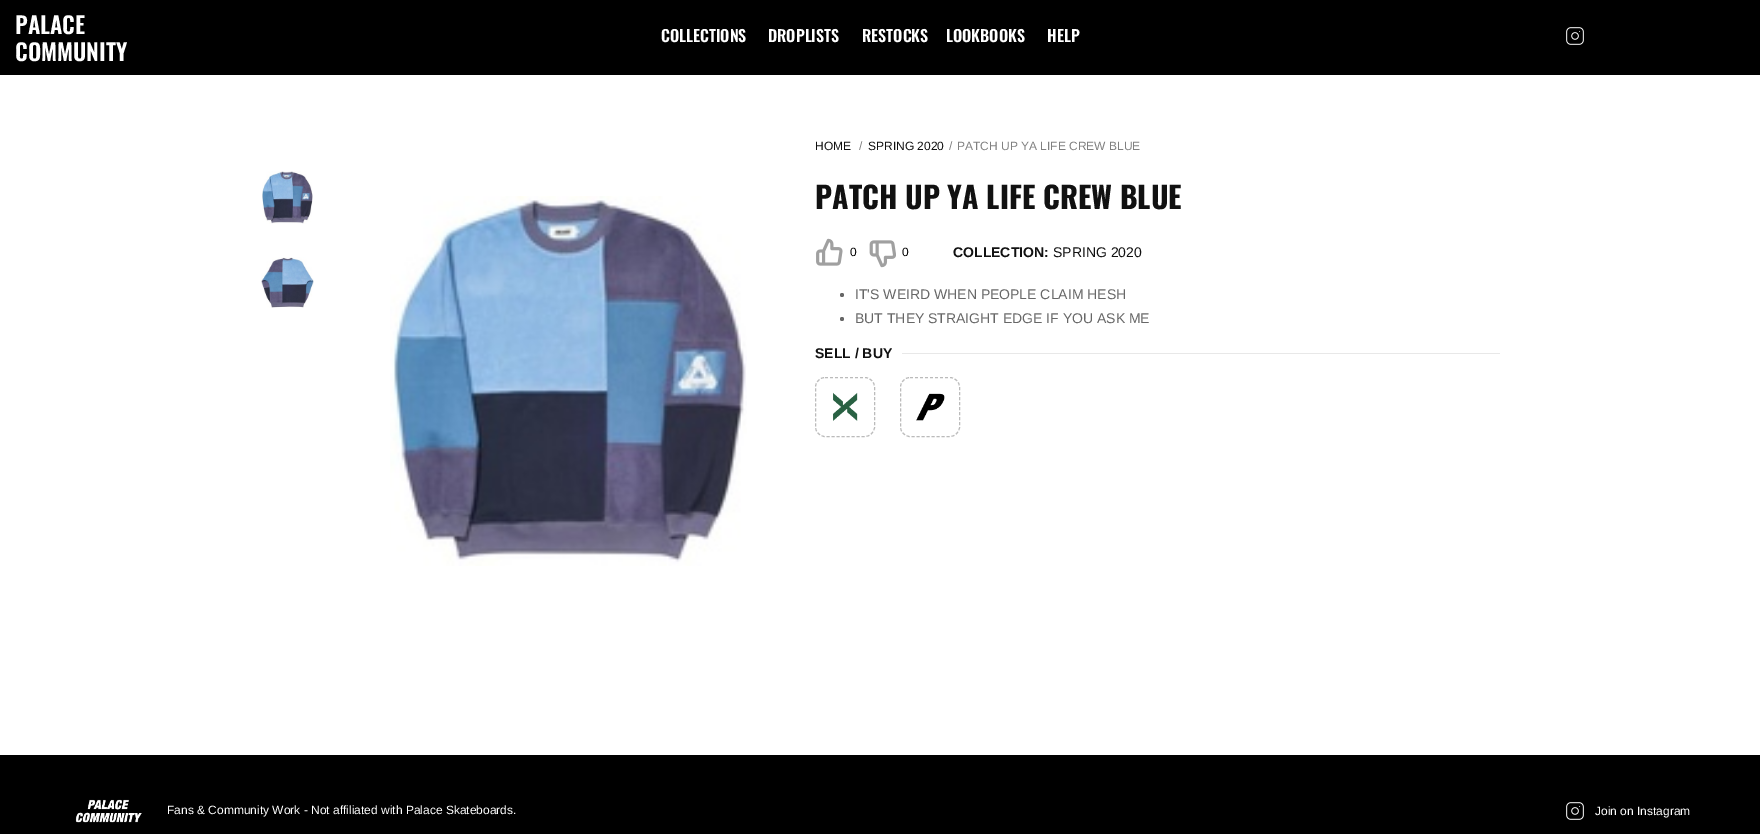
%!PS
<< /PageSize [1760 834] >> setpagedevice
/m/moveto load def
/l/rlineto load def
/c/rcurveto load def
/z/closepath load def
/f/fill load def
/s/stroke load def
/C { dup -16 bitshift 255 div exch dup -8 bitshift 255 and 255 div exch 255 and 255 div setrgbcolor } def
/F { [ exch dup neg 0 0 3 -1 roll 0 0 ] selectfont } def
/T { moveto show } def
/R { rectfill } def
/O { newpath 0 360 arc closepath } def
/I { 5 dict begin { /h /w /y /x /name } { exch def } forall
  gsave x y translate w h scale
  w h 8 [w 0 0 h 0 0] name (r) file false 3 colorimage grestore end } def
0 834 translate 1 -1 scale
4 setmiterlimit
16#FFFFFF C
0 0 1760 834 R
16#000000 C
0 0 1760 75 R
/Oswald-SemiBold 23 F
16#FFFFFF C
(PALACE) 15 34 T
(COMMUNITY) 15 61 T
/Oswald-SemiBold 16 F
(COLLECTIONS) 661 42 T
(DROPLISTS) 768 42 T
(RESTOCKS) 862 42 T
(LOOKBOOKS) 946 42 T
(HELP) 1047 42 T
(1.rgb) 1566 27 18 18 I
(2.rgb) 262 171 51 53 I
(3.rgb) 261 257 53 51 I
(4.rgb) 390 196 357 370 I
/LiberationSans-Regular 12 F
16#111111 C
(HOME) 815 150 T
16#808080 C
(/) 859 150 T
16#111111 C
(SPRING 2020) 868 150 T
16#808080 C
(/) 949 150 T
(PATCH UP YA LIFE CREW BLUE) 957 150 T
/Oswald-Bold 30 F
16#111111 C
(PATCH UP YA LIFE CREW BLUE) 815 209 T
(5.rgb) 816 238 27 28 I
/LiberationSans-Regular 12 F
16#000000 C
(0) 850 256 T
(6.rgb) 869 240 27 28 I
(0) 902 256 T
/LiberationSans-Bold 14 F
16#111111 C
(COLLECTION:) 953 257 T
/LiberationSans-Regular 14 F
(SPRING 2020) 1053 257 T
16#676767 C
842 295 2 O f
(IT'S WEIRD WHEN PEOPLE CLAIM HESH) 855 299 T
842 319 2 O f
(BUT THEY STRAIGHT EDGE IF YOU ASK ME) 855 323 T
/LiberationSans-Bold 14 F
16#111111 C
(SELL / BUY) 815 358 T
16#E8E8E8 C
902 353 598 1 R
16#BBBBBB C
[3 2] 0 setdash
825 377.5 m 40 0 l 5 0 9.5 4.5 9.5 9.5 c 0 40 l 0 5 -4.5 9.5 -9.5 9.5 c -40 0 l -5 0 -9.5 -4.5 -9.5 -9.5 c 0 -40 l 0 -5 4.5 -9.5 9.5 -9.5 c z s
(7.rgb) 833 392 25 29 I
910 377.5 m 40 0 l 5 0 9.5 4.5 9.5 9.5 c 0 40 l 0 5 -4.5 9.5 -9.5 9.5 c -40 0 l -5 0 -9.5 -4.5 -9.5 -9.5 c 0 -40 l 0 -5 4.5 -9.5 9.5 -9.5 c z s
(8.rgb) 916 393 29 28 I
16#000000 C
0 755 1760 79 R
(9.rgb) 75 799 67 24 I
/LiberationSans-Regular 12 F
16#FFFFFF C
(Fans & Community Work - Not affiliated with Palace Skateboards.) 167 814 T
(1.rgb) 1566 802 18 18 I
(Join on Instagram) 1595 815 T
showpage
